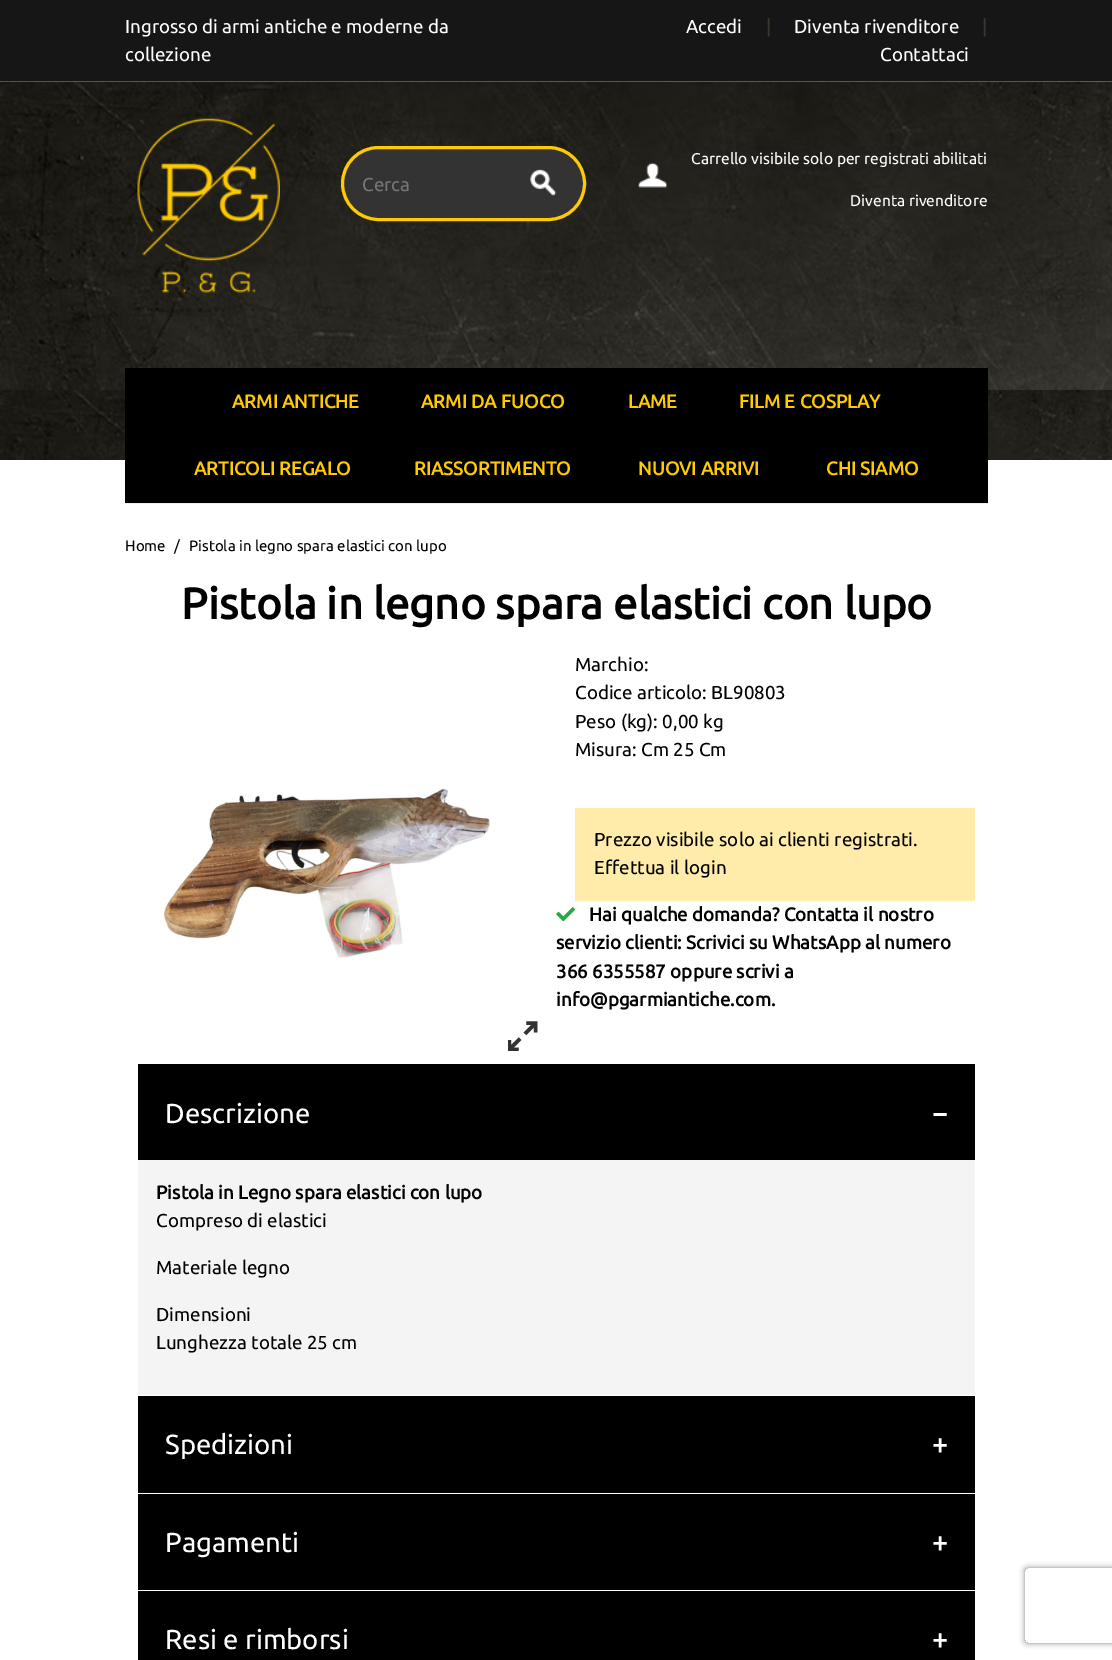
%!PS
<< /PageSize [1112 1660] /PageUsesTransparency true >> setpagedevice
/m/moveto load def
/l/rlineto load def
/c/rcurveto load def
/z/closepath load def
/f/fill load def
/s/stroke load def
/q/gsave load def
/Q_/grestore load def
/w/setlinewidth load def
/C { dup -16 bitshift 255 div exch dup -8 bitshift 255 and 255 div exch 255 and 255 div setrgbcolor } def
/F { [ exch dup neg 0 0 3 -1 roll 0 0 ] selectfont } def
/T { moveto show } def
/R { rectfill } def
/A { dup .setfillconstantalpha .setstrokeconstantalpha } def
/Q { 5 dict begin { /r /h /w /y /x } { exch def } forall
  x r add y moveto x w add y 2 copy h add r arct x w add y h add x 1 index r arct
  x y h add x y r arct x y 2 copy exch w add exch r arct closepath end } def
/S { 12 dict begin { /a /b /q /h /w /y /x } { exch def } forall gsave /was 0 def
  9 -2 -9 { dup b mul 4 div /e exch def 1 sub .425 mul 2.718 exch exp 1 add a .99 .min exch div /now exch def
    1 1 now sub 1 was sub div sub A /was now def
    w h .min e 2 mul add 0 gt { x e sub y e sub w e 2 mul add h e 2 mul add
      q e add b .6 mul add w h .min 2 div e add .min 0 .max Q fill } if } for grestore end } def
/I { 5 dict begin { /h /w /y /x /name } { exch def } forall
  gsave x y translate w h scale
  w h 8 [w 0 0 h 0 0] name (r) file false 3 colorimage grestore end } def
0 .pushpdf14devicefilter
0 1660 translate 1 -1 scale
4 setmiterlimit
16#FFFFFF C
0 0 1112 1660 R
16#161616 C
0 0 1112 81 R
/Ubuntu-Regular 18.75 F
16#FFFFFF C
(Ingrosso di armi antiche e moderne da) 125 33 T
(collezione) 125 61 T
(Accedi) 686 33 T
16#3A382E C
(|) 766 33 T
16#FFFFFF C
(Diventa rivenditore) 794 33 T
16#3A382E C
(|) 982 33 T
16#FFFFFF C
(Contattaci) 880 61 T
(1.rgb) 0 81 1112 379 I
(2.rgb) 137 118 143 175 I
16#333333 C
342.5 147.5 242 72 36 Q q f Q_
16#FFCA00 C
3 w
s
16#767676 C
(Cerca) 362 191 T
(3.rgb) 530 169 27 27 I
(4.rgb) 638 162 30 26 I
/Ubuntu-Regular 15.6 F
16#FFFFFF C
(Carrello visibile solo per registrati abilitati) 691 164 T
(Diventa rivenditore) 850 206 T
16#000000 C
125 368 863 135 R
16#EDEDED C
125 503 863 1 R
/Ubuntu-Bold 18.75 F
16#FFCA00 C
(ARMI ANTICHE) 232 408 T
(ARMI DA FUOCO) 421 408 T
(LAME) 628 408 T
(FILM E COSPLAY) 739 408 T
(ARTICOLI REGALO) 194 475 T
(RIASSORTIMENTO) 414 475 T
(NUOVI ARRIVI) 638 475 T
(CHI SIAMO) 826 475 T
/Ubuntu-Regular 15 F
16#000000 C
(Home) 125 551 T
(/) 174 551 T
(Pistola in legno spara elastici con lupo) 189 551 T
/Ubuntu-Bold 43.75 F
(Pistola in legno spara elastici con lupo) 181 619 T
/Ubuntu-Regular 18.75 F
(Marchio:) 575 671 T
(Codice articolo: BL90803) 575 699 T
(Peso \(kg\): 0,00 kg) 575 728 T
(Misura: Cm 25 Cm) 575 756 T
(5.rgb) 163 788 327 170 I
(6.rgb) 508 1021 30 30 I
16#FFECAB C
575 808 400 93 R
16#000000 C
(Prezzo visibile solo ai clienti registrati.) 594 846 T
(Effettua il login) 594 874 T
(7.rgb) 556 907 19 15 I
/Ubuntu-Bold 18.75 F
(Hai qualche domanda? Contatta il nostro) 589 921 T
(servizio clienti: Scrivici su WhatsApp al numero) 556 949 T
(366 6355587 oppure scrivi a) 556 978 T
(info@pgarmiantiche.com.) 556 1006 T
138 1064 837 96 R
/Ubuntu-Regular 27.5 F
16#FFFFFF C
(Descrizione) 165 1123 T
/Ubuntu-Bold 27.5 F
(−) 932 1123 T
16#F4F4F4 C
138 1160 837 235 R
/Ubuntu-Bold 18.75 F
16#000000 C
(Pistola in Legno spara elastici con lupo) 156 1199 T
/Ubuntu-Regular 18.75 F
(Compreso di elastici) 156 1227 T
(Materiale legno) 156 1274 T
(Dimensioni) 156 1321 T
(Lunghezza totale 25 cm) 156 1349 T
138 1396 837 97 R
/Ubuntu-Regular 27.5 F
16#FFFFFF C
(Spedizioni) 165 1454 T
/Ubuntu-Bold 27.5 F
(+) 932 1454 T
16#000000 C
138 1494 837 96 R
/Ubuntu-Regular 27.5 F
16#FFFFFF C
(Pagamenti) 165 1552 T
/Ubuntu-Bold 27.5 F
(+) 932 1552 T
16#000000 C
138 1591 837 69 R
/Ubuntu-Regular 27.5 F
16#FFFFFF C
(Resi e rimborsi) 165 1649 T
/Ubuntu-Bold 27.5 F
(+) 932 1649 T
q
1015 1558 m 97 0 l 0 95 l -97 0 l z 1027.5 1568 m 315 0 l 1.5 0 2.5 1 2.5 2.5 c 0 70 l 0 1.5 -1 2.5 -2.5 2.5 c -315 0 l -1.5 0 -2.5 -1 -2.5 -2.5 c 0 -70 l 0 -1.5 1 -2.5 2.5 -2.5 c z eoclip newpath
16#808080 C
1025 1568 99 75 2.5 3 1 S
Q_
.poppdf14devicefilter showpage
